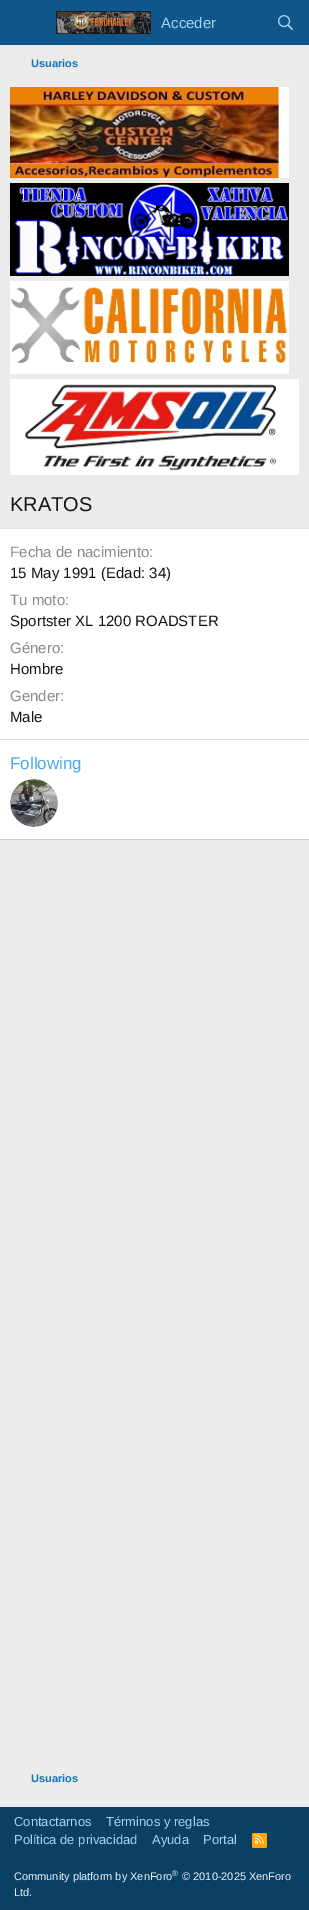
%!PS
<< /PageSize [309 1910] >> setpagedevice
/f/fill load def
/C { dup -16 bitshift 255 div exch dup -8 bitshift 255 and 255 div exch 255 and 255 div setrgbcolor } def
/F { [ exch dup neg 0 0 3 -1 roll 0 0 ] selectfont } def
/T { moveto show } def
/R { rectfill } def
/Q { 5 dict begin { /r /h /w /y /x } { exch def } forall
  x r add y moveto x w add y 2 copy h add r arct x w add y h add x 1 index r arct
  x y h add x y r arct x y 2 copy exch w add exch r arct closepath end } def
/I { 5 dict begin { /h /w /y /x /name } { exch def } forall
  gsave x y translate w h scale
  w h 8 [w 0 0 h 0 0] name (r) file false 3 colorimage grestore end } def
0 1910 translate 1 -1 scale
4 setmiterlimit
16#EBEBEB C
0 0 309 1910 R
16#0F578A C
0 0 309 45 R
(1.rgb) 56 11 95 23 I
/LiberationSans-Regular 15 F
16#A3D4F5 C
(Acceder) 161 28 T
(2.rgb) 278 15 15 15 I
/LiberationSans-Bold 11 F
16#1474B8 C
(Usuarios) 31 67 T
(3.rgb) 10 87 279 91 I
(4.rgb) 10 183 279 93 I
(5.rgb) 10 281 279 93 I
(6.rgb) 10 379 289 96 I
/LiberationSans-Regular 20 F
16#141414 C
(KRATOS) 10 511 T
16#FFFFFF C
0 529 309 310 R
16#E0E0E0 C
0 528 309 1 R
16#CCCCCC C
0 839 309 1 R
/LiberationSans-Regular 15 F
16#8A8A8A C
(Fecha de nacimiento:) 10 557 T
16#141414 C
(15 May 1991 \(Edad: 34\)) 10 578 T
16#8A8A8A C
(Tu moto:) 10 605 T
16#141414 C
(Sportster XL 1200 ROADSTER) 10 626 T
16#8A8A8A C
(Género:) 10 653 T
16#141414 C
(Hombre) 10 674 T
16#8A8A8A C
(Gender:) 10 701 T
16#141414 C
(Male) 10 722 T
16#E0E0E0 C
0 739 309 1 R
/LiberationSans-Regular 17 F
16#47A7EB C
(Following) 10 769 T
(7.rgb) 10 779 48 48 I
/LiberationSans-Bold 11 F
16#1474B8 C
(Usuarios) 31 1782 T
16#0B4065 C
0 1807 309 103 R
/LiberationSans-Regular 13 F
16#A3D4F5 C
(Contactarnos) 14 1826 T
(Términos y reglas) 106 1826 T
(Política de privacidad) 14 1844 T
(Ayuda) 152 1844 T
(Portal) 203 1844 T
16#FFA500 C
252 1833 15 15 2 Q f
(8.rgb) 254 1834 10 10 I
/LiberationSans-Regular 11 F
16#E8F4FC C
(Community platform by XenForo) 14 1880 T
/LiberationSans-Regular 8 F
(®) 172 1876 T
/LiberationSans-Regular 11 F
(© 2010-2025 XenForo) 182 1880 T
(Ltd.) 14 1896 T
showpage
